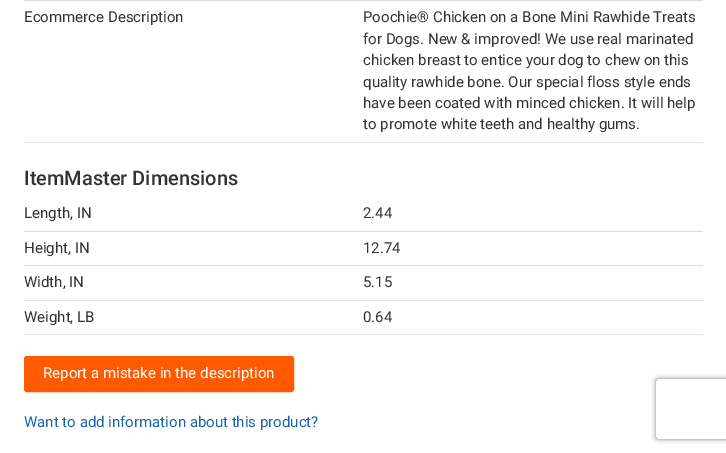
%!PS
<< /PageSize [726 453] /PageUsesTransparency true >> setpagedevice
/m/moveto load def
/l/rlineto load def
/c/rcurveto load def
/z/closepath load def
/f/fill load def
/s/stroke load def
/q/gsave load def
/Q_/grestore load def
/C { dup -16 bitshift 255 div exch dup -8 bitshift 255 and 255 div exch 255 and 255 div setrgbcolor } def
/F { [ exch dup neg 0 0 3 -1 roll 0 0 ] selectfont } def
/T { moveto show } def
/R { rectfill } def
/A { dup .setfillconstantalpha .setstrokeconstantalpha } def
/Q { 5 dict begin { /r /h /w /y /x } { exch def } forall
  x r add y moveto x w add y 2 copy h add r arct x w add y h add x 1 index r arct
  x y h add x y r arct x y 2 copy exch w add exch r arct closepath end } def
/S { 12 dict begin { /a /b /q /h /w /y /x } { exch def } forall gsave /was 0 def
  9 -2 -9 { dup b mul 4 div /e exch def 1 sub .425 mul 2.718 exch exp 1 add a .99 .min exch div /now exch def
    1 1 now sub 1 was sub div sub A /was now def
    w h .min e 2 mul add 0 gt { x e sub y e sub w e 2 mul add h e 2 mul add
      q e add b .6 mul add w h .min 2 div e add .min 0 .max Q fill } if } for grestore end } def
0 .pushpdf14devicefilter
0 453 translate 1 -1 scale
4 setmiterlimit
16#FFFFFF C
0 0 726 453 R
16#E1E1E1 C
24 142 679 1 R
/Roboto-Regular 15 F
16#333333 C
(Ecommerce Description) 24 22 T
16#DDDDDD C
24 0 679 1 R
16#333333 C
(Poochie® Chicken on a Bone Mini Rawhide Treats) 363 22 T
(for Dogs. New & improved! We use real marinated) 363 44 T
(chicken breast to entice your dog to chew on this) 363 65 T
(quality rawhide bone. Our special floss style ends) 363 87 T
(have been coated with minced chicken. It will help) 363 108 T
(to promote white teeth and healthy gums.) 363 129 T
/Roboto-Medium 20 F
(ItemMaster Dimensions) 24 185 T
/Roboto-Regular 15 F
(Length, IN) 24 218 T
(2.44) 363 218 T
(Height, IN) 24 253 T
16#DDDDDD C
24 231 679 1 R
16#333333 C
(12.74) 363 253 T
(Width, IN) 24 287 T
16#DDDDDD C
24 265 679 1 R
16#333333 C
(5.15) 363 287 T
16#E1E1E1 C
24 334 679 1 R
16#333333 C
(Weight, LB) 24 322 T
16#DDDDDD C
24 300 679 1 R
16#333333 C
(0.64) 363 322 T
16#FF5A00 C
24.5 356.5 269 35 2.5 Q q f Q_
s
16#FFFFFF C
(Report a mistake in the description) 43 378 T
16#1F63A8 C
(Want to add information about this product?) 24 427 T
q
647 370 m 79 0 l 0 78 l -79 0 l z 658 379 m 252 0 l 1 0 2 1 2 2 c 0 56 l 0 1 -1 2 -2 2 c -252 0 l -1 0 -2 -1 -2 -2 c 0 -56 l 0 -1 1 -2 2 -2 c z eoclip newpath
16#808080 C
656 379 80 60 2 2.5 1 S
Q_
.poppdf14devicefilter showpage
